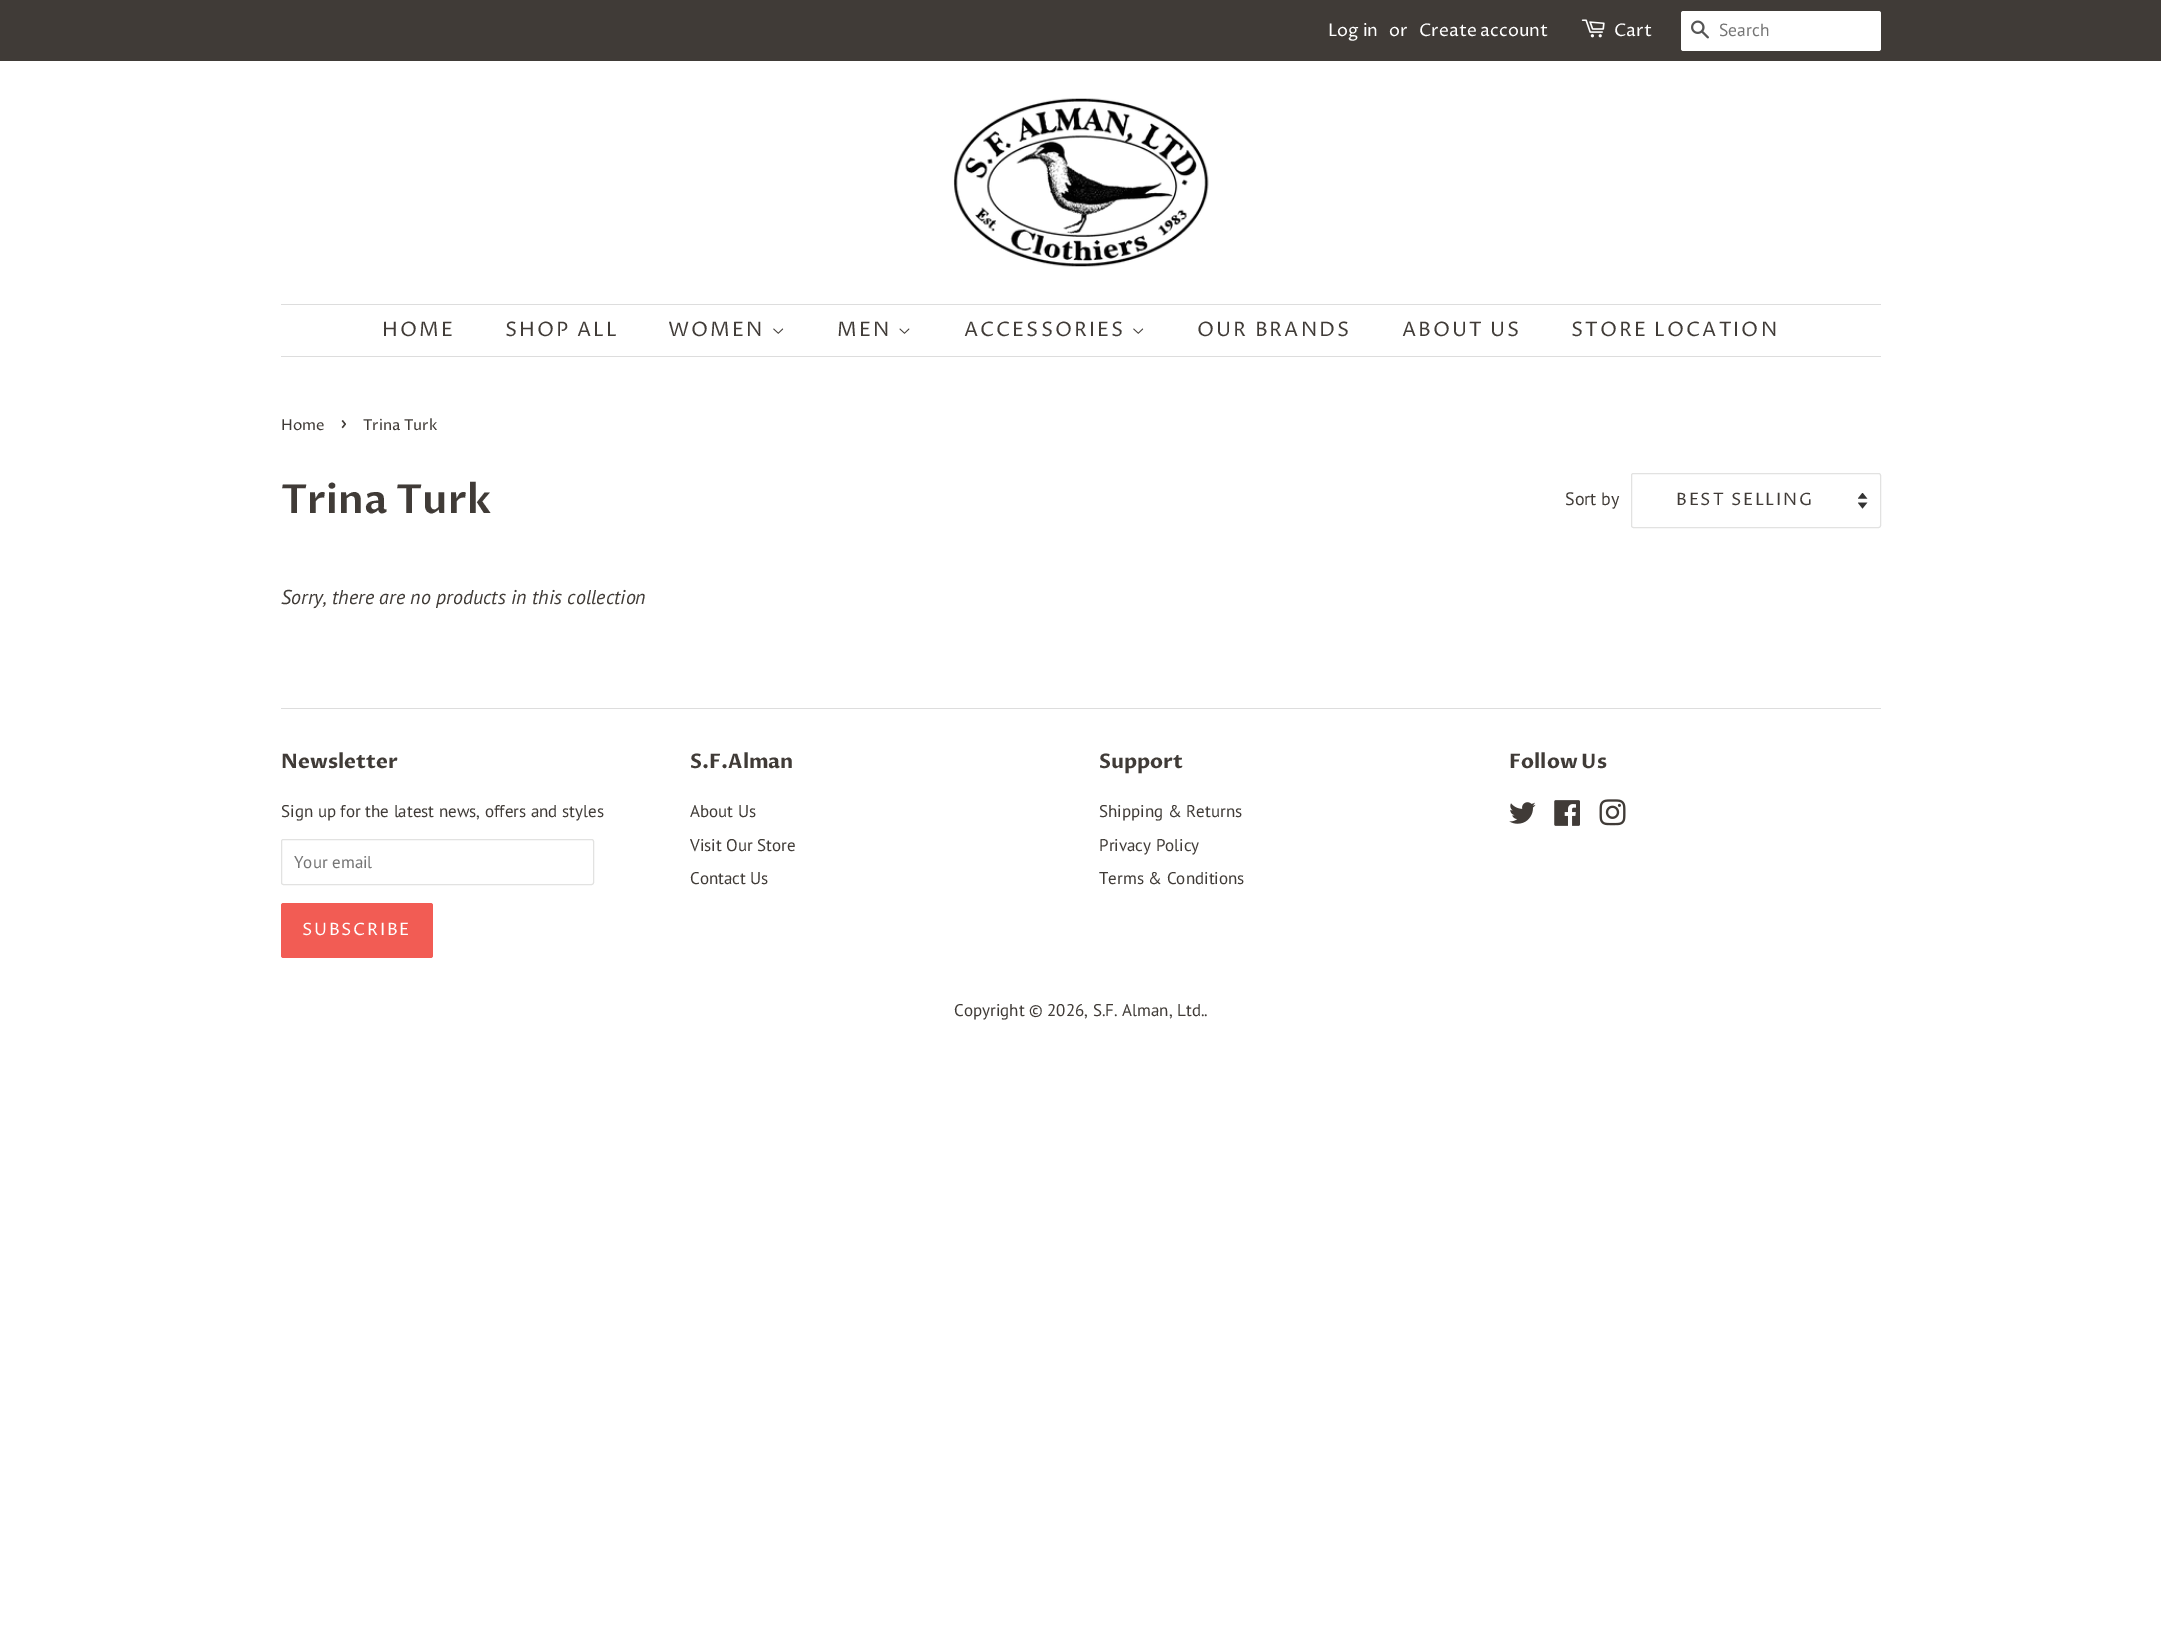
%!PS
<< /PageSize [2161 1638] >> setpagedevice
/m/moveto load def
/f/fill load def
/s/stroke load def
/C { dup -16 bitshift 255 div exch dup -8 bitshift 255 and 255 div exch 255 and 255 div setrgbcolor } def
/F { [ exch dup neg 0 0 3 -1 roll 0 0 ] selectfont } def
/T { moveto show } def
/R { rectfill } def
/Q { 5 dict begin { /r /h /w /y /x } { exch def } forall
  x r add y moveto x w add y 2 copy h add r arct x w add y h add x 1 index r arct
  x y h add x y r arct x y 2 copy exch w add exch r arct closepath end } def
/I { 5 dict begin { /h /w /y /x /name } { exch def } forall
  gsave x y translate w h scale
  w h 8 [w 0 0 h 0 0] name (r) file false 3 colorimage grestore end } def
0 1638 translate 1 -1 scale
4 setmiterlimit
16#FFFFFF C
0 0 2161 1638 R
16#403B37 C
0 0 2161 61 R
/ProzaLibre-Regular 17.5 F
16#FFFFFF C
(Log in) 1328 36 T
(or) 1389 36 T
(Create account) 1419 36 T
(1.rgb) 1581 19 24 19 I
(Cart) 1614 36 T
1681 11 200 40 2.5 Q f
(2.rgb) 1691 20 18 19 I
/PTSans-Regular 17.5 F
16#757575 C
(Search) 1719 36 T
(3.rgb) 953 98 256 169 I
16#DDDDDD C
281 304 1600 1 R
281 356 1600 1 R
/ProzaLibre-Regular 20 F
16#403B37 C
382 336 m 2 0 (HOME) ashow
505 336 m 2 0 (SHOP ALL) ashow
668 336 m 2 0 (WOMEN) ashow
(4.rgb) 773 328 11 6 I
837 336 m 2 0 (MEN) ashow
(5.rgb) 899 328 11 6 I
964 336 m 2 0 (ACCESSORIES) ashow
(4.rgb) 1133 328 11 6 I
1197 336 m 2 0 (OUR BRANDS) ashow
1402 336 m 2 0 (ABOUT US) ashow
1571 336 m 2 0 (STORE LOCATION) ashow
/ProzaLibre-Regular 15 F
(Home) 281 430 T
/ProzaLibre-Regular 21 F
(›) 340 430 T
/ProzaLibre-Regular 15 F
(Trina Turk) 363 430 T
/ProzaLibre-SemiBold 40 F
(Trina Turk) 281 513 T
/PTSans-Regular 18 F
(Sort by) 1565 505 T
(6.rgb) 1858 493 10 16 I
16#E2E2E1 C
1631.5 473.5 249 54 2 Q s
/ProzaLibre-Regular 17 F
16#403B37 C
1676 505 m 1.75 0 (BEST SELLING) ashow
/PTSans-Italic 20 F
(Sorry, there are no products in this collection) 281 604 T
16#DDDDDD C
281 708 1600 1 R
/ProzaLibre-Bold 20 F
16#403B37 C
(Newsletter) 281 768 T
/PTSans-Regular 17 F
(Sign up for the latest news, offers and styles) 281 817 T
16#E2E2E1 C
281.5 839.5 312 45 2 Q s
16#757575 C
(Your email) 294 868 T
16#F25C54 C
281 903 152 55 2.5 Q f
/ProzaLibre-Regular 17 F
16#FFFFFF C
302 935 m 1.75 0 (SUBSCRIBE) ashow
/ProzaLibre-Bold 20 F
16#403B37 C
(S.F.Alman) 690 768 T
/PTSans-Regular 17 F
(About Us) 690 817 T
(Visit Our Store) 690 851 T
(Contact Us) 690 884 T
/ProzaLibre-Bold 20 F
(Support) 1099 768 T
/PTSans-Regular 17 F
(Shipping & Returns) 1099 817 T
(Privacy Policy) 1099 851 T
(Terms & Conditions) 1099 884 T
/ProzaLibre-Bold 20 F
(Follow Us) 1509 768 T
(7.rgb) 1509 802 27 22 I
(8.rgb) 1554 800 26 26 I
(9.rgb) 1599 799 27 27 I
/PTSans-Regular 17 F
(Copyright © 2026, S.F. Alman, Ltd..) 954 1016 T
showpage
